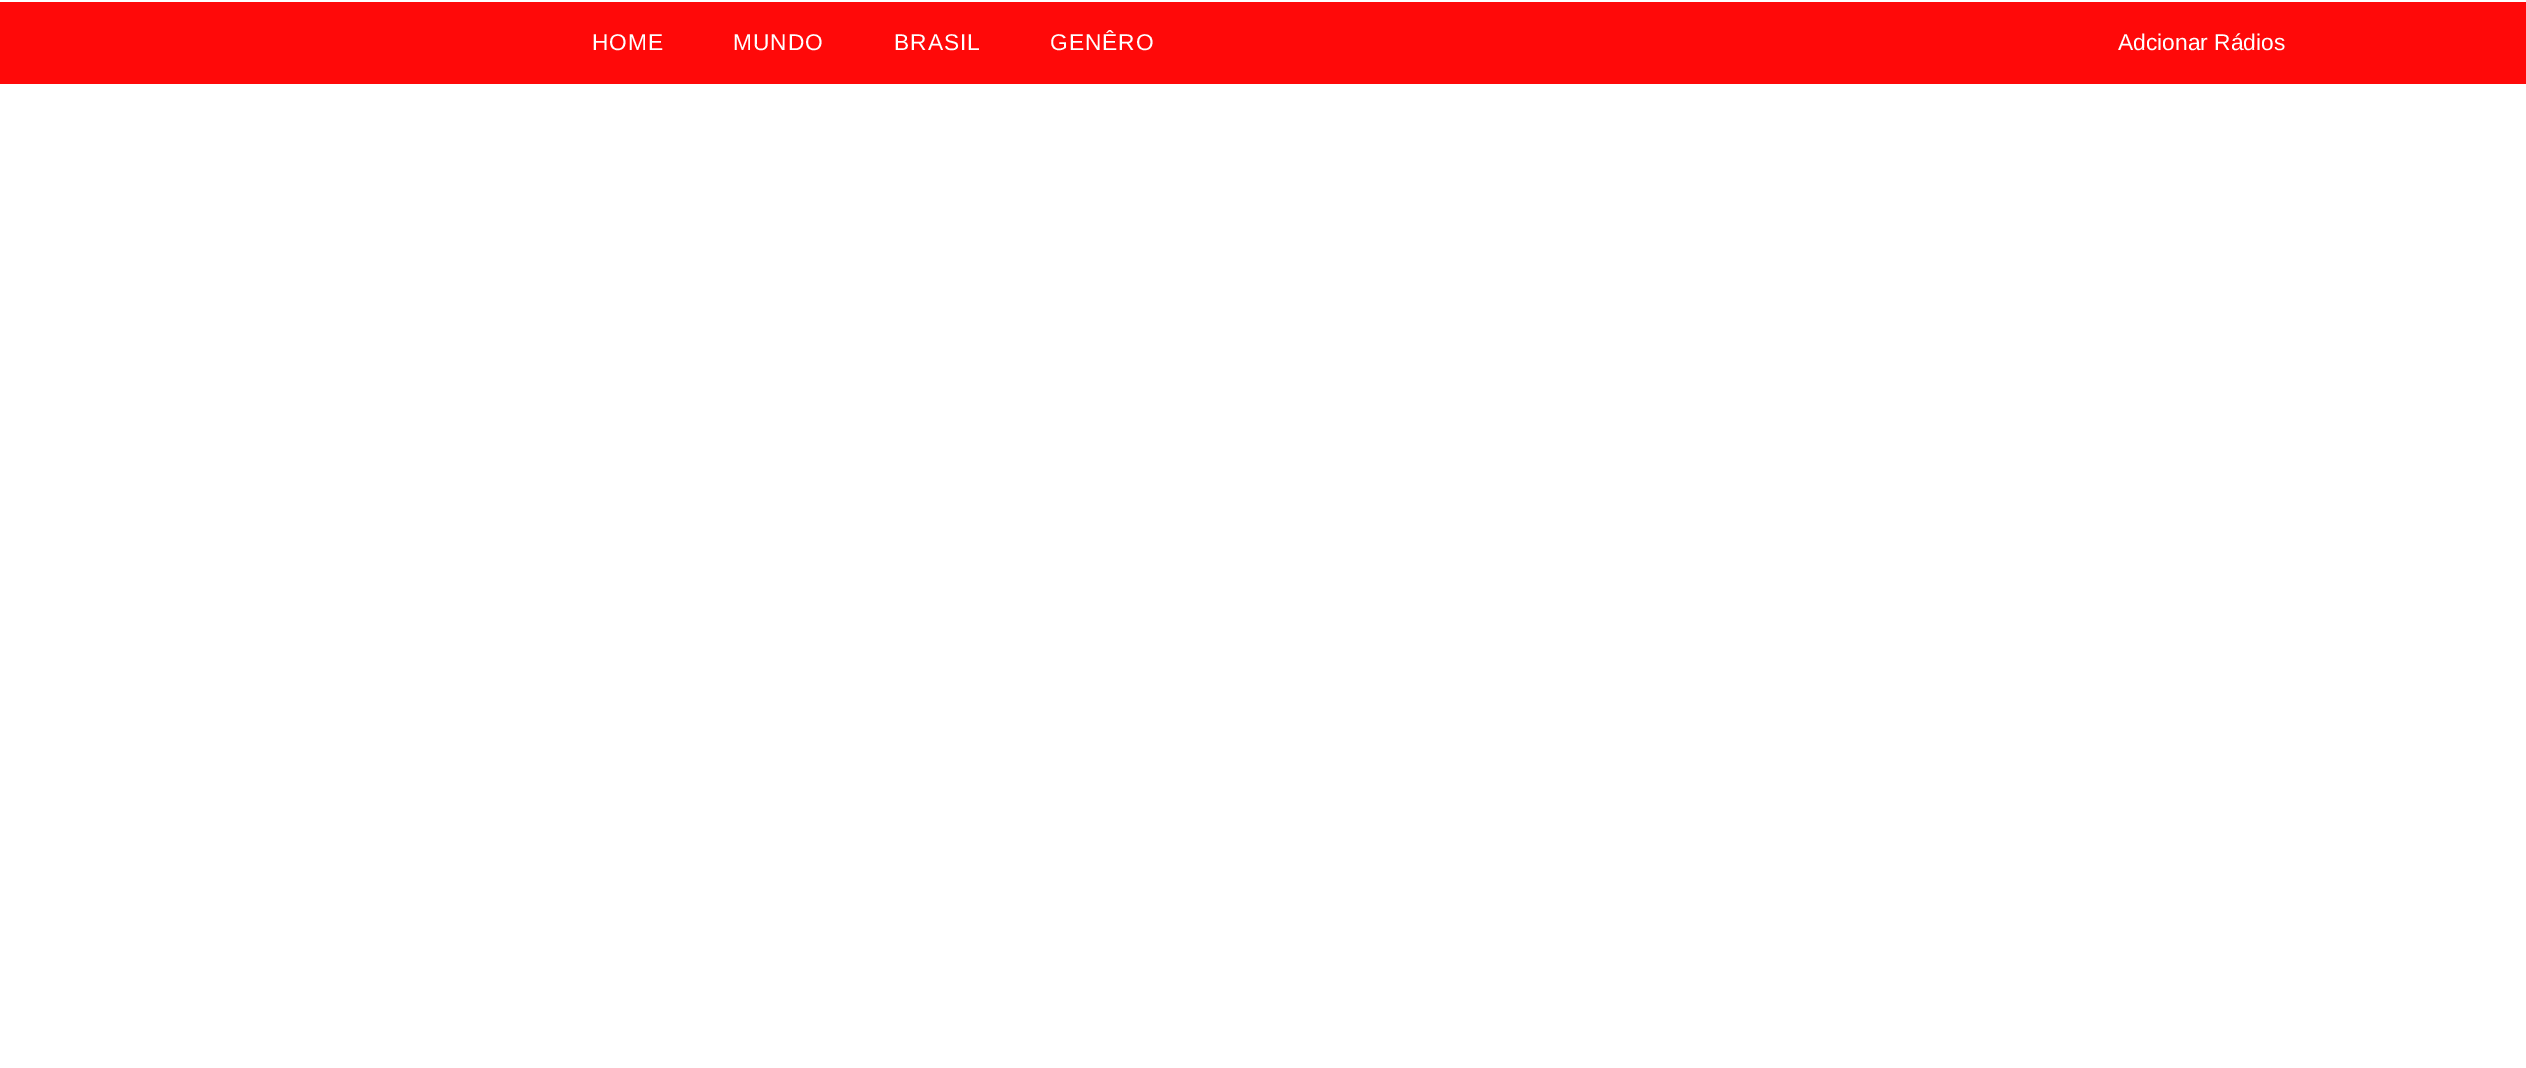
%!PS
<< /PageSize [2526 1068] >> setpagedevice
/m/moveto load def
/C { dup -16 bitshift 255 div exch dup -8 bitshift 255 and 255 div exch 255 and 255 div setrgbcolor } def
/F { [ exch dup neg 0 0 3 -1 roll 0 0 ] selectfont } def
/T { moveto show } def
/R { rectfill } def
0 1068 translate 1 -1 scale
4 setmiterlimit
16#FFFFFF C
0 0 2526 1068 R
16#FF0909 C
0 2 2526 82 R
/LiberationSans-Regular 22.75 F
16#FFFFFF C
592 50 m 1 0 (HOME) ashow
733 50 m 1 0 (MUNDO) ashow
894 50 m 1 0 (BRASIL) ashow
1050 50 m 1 0 (GENÊRO) ashow
(Adcionar Rádios) 2118 50 T
showpage
